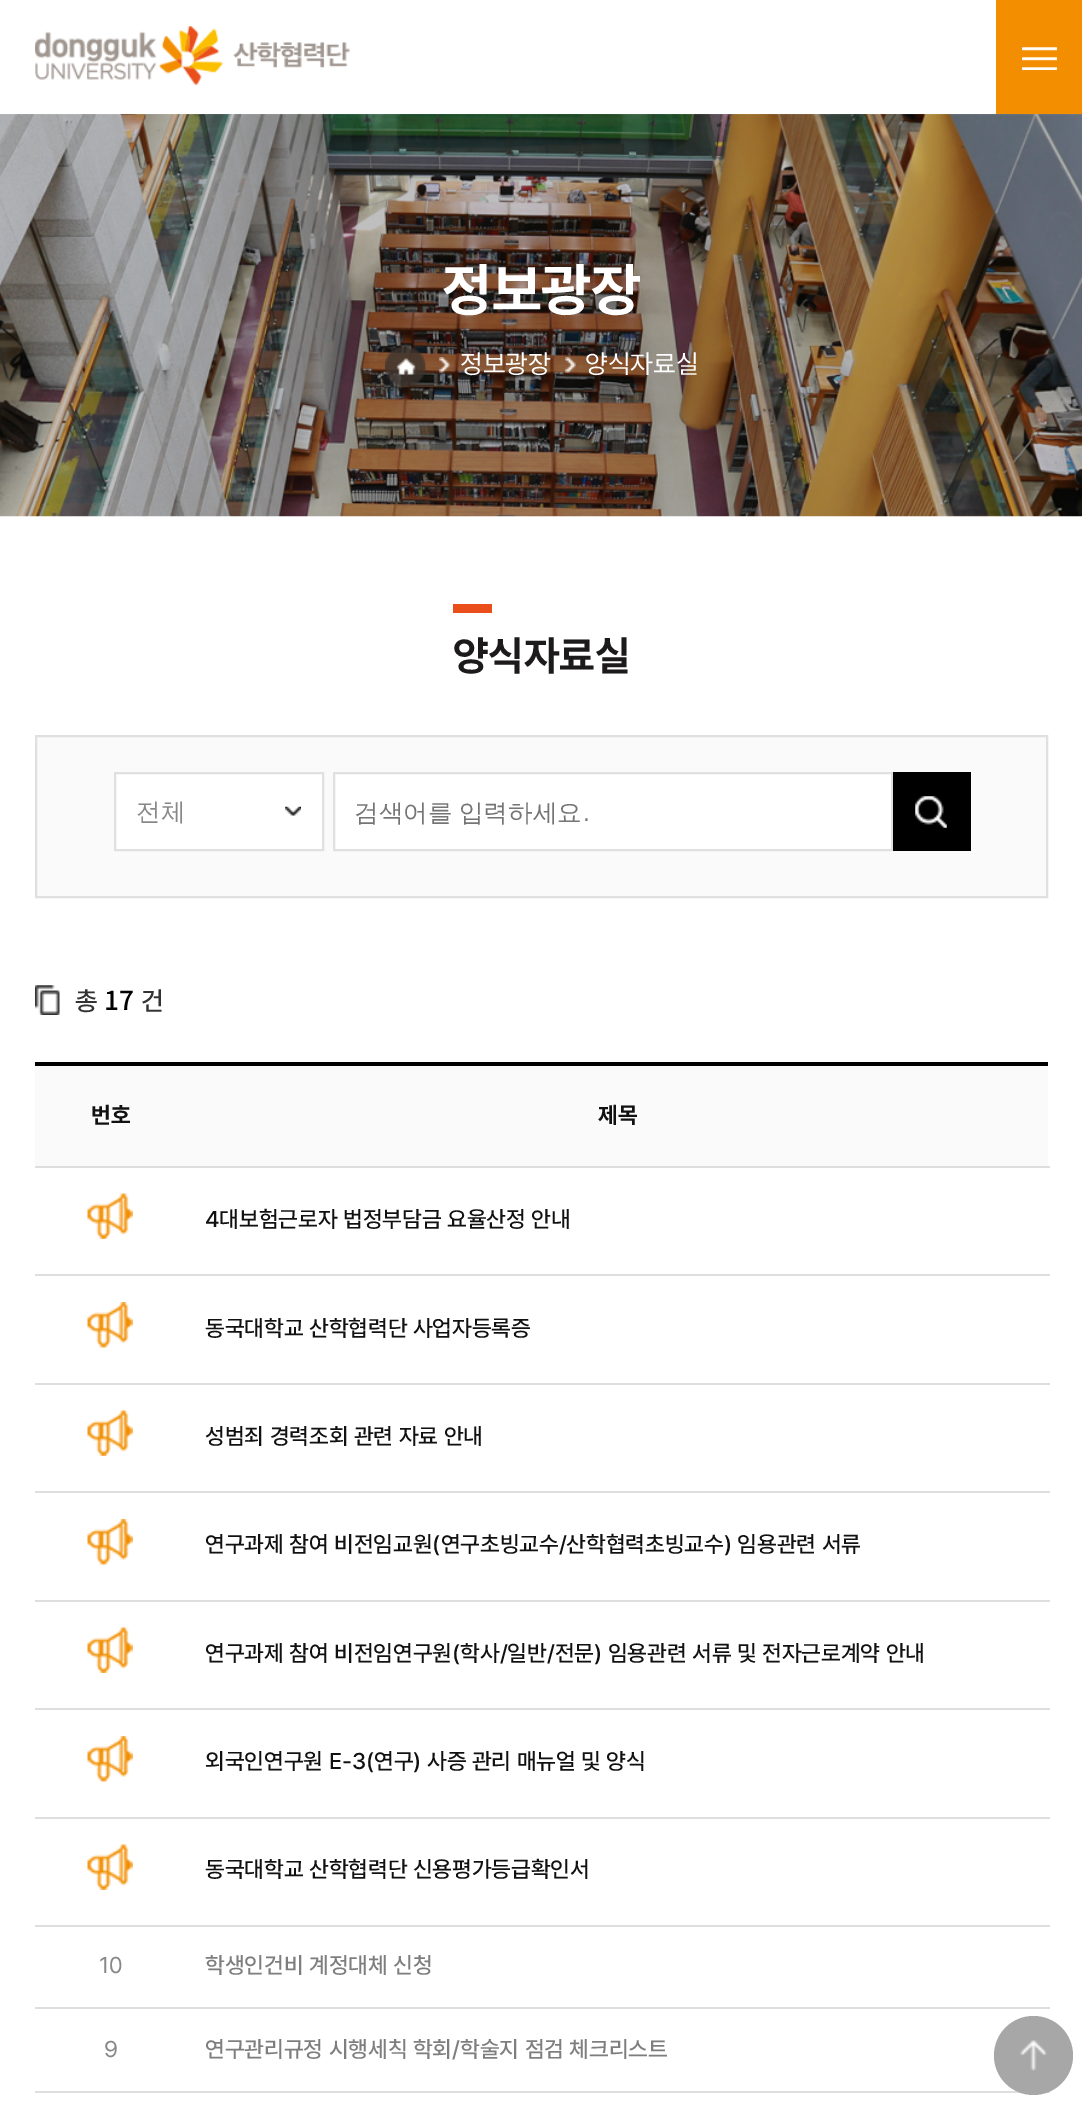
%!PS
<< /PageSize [1082 2111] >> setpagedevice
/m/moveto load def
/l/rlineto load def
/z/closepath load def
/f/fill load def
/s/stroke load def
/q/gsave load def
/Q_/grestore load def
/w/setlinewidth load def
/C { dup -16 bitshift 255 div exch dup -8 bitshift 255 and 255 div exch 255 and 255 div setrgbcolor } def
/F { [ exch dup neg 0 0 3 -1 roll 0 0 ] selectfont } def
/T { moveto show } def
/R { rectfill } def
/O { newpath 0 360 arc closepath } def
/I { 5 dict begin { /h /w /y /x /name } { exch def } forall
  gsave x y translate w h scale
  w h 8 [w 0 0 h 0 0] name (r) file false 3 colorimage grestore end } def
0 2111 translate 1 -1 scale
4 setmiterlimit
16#FFFFFF C
0 0 1082 2111 R
(1.rgb) 35 26 315 60 I
16#F28E00 C
996 0 86 114 R
(2.rgb) 1022 47 35 23 I
(3.rgb) 0 114 1082 403 I
/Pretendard-Bold 57.5 F
16#FFFFFF C
(정보광장) 442 310 T
(4.rgb) 385 346 41 41 I
(5.rgb) 439 357 11 16 I
/Pretendard-Regular 26.25 F
(정보광장) 460 373 T
(6.rgb) 565 357 11 16 I
(양식자료실) 585 373 T
16#E94E1B C
453 604 39 9 R
/Pretendard-Bold 41 F
16#1C1A1A C
(양식자료실) 453 670 T
16#FAFAFA C
36 736 m 1011 0 l 0 161 l -1011 0 l z q f Q_
16#E0E0E0 C
2 w
s
16#FFFFFF C
116 774 206 75 R
(7.rgb) 285 806 16 10 I
16#E0E0E0 C
115 773 208 77 rectstroke
/WenQuanYiZenHei-Medium 24.6 F
16#888888 C
(전체) 136 820 T
16#FFFFFF C
334 773 m 558 0 l 0 77 l -558 0 l z q f Q_
16#E0E0E0 C
s
16#757575 C
354 821 m -1 0 32 (검색어를 입력하세요) widthshow
/LiberationSans-Regular 24.6 F
(.) 583 821 T
16#000000 C
893 772 78 79 R
(8.rgb) 915 796 32 32 I
(9.rgb) 35 985 25 30 I
/Pretendard-Medium 26.25 F
16#333333 C
(총) 75 1010 T
/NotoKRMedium-Medium 26.25 F
16#000000 C
(17) 104 1010 T
/Pretendard-Medium 26.25 F
16#333333 C
(건) 141 1010 T
16#000000 C
35 1062 1013 4 R
16#FAFAFA C
35 1066 1013 100 R
/Pretendard-Bold 22.75 F
16#111111 C
(번호) 91 1123 T
16#DEDEDE C
35 1166 1015 2 R
16#111111 C
(제목) 598 1123 T
(10.rgb) 87 1193 46 46 I
16#DEDEDE C
35 1274 1015 2 R
/Pretendard-Medium 22.75 F
16#111111 C
(4대보험근로자 법정부담금 요율산정 안내) 205 1227 T
(11.rgb) 87 1302 46 46 I
16#DEDEDE C
35 1383 1015 2 R
16#111111 C
(동국대학교 산학협력단 사업자등록증) 205 1336 T
(10.rgb) 87 1410 46 46 I
16#DEDEDE C
35 1491 1015 2 R
16#111111 C
(성범죄 경력조회 관련 자료 안내) 205 1444 T
(11.rgb) 87 1519 46 46 I
16#DEDEDE C
35 1600 1015 2 R
16#111111 C
(연구과제 참여 비전임교원\(연구초빙교수/산학협력초빙교수\) 임용관련 서류) 205 1552 T
(10.rgb) 87 1627 46 46 I
16#DEDEDE C
35 1708 1015 2 R
16#111111 C
(연구과제 참여 비전임연구원\(학사/일반/전문\) 임용관련 서류 및 전자근로계약 안내) 205 1661 T
(11.rgb) 87 1736 46 46 I
16#DEDEDE C
35 1817 1015 2 R
16#111111 C
(외국인연구원 E-3\(연구\) 사증 관리 매뉴얼 및 양식) 205 1769 T
(10.rgb) 87 1844 46 46 I
16#DEDEDE C
35 1925 1015 2 R
16#111111 C
(동국대학교 산학협력단 신용평가등급확인서) 205 1877 T
/Pretendard-Regular 22.75 F
16#888888 C
(10) 99 1973 T
16#DEDEDE C
35 2007 1015 2 R
/Pretendard-Medium 22.75 F
16#7E7E7E C
(학생인건비 계정대체 신청) 205 1973 T
/Pretendard-Regular 22.75 F
16#888888 C
(9) 104 2057 T
16#DEDEDE C
35 2091 1015 2 R
/Pretendard-Medium 22.75 F
16#7E7E7E C
(연구관리규정 시행세칙 학회/학술지 점검 체크리스트) 205 2057 T
16#A7A7A7 C
1033.5 2055.5 39.5 O f
(12.rgb) 1020 2040 27 31 I
showpage
